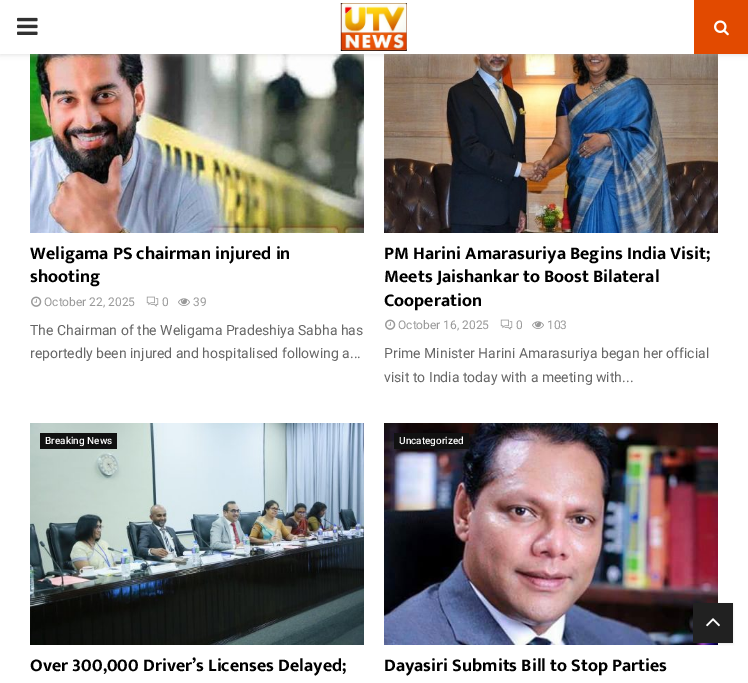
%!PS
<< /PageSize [748 683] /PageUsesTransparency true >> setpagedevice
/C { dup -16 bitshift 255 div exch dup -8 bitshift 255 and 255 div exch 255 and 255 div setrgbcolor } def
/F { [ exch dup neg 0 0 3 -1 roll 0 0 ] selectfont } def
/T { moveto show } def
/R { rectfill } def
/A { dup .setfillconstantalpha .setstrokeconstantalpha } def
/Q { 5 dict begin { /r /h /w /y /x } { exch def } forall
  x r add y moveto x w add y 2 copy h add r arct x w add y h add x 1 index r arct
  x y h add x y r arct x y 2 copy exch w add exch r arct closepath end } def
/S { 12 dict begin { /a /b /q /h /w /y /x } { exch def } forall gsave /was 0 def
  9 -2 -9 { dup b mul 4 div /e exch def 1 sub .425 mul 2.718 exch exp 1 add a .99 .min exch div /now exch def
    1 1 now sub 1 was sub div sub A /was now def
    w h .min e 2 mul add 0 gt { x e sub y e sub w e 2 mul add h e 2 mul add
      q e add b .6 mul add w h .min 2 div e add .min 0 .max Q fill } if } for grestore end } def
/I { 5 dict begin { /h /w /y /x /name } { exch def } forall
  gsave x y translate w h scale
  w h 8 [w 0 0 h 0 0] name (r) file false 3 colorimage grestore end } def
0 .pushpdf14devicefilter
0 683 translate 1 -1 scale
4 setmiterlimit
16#FFFFFF C
0 0 748 683 R
(4.rgb) 30 54 334 179 I
(8.rgb) 384 54 334 179 I
16#BEBEBE C
0 1 748 54 0 2.5 .46 S
16#FFFFFF C
0 0 694 54 R
(1.rgb) 17 17 21 18 I
(2.rgb) 340 3 67 48 I
16#E24A00 C
694 0 54 54 R
(3.rgb) 714 20 15 16 I
/MuktaVaani-Bold 18 F
16#000000 C
(Weligama PS chairman injured in) 30 259 T
(shooting) 30 282 T
(5.rgb) 31 296 11 11 I
/Roboto-Regular 12 F
16#999999 C
(October 22, 2025) 44 306 T
(6.rgb) 146 296 13 11 I
(0) 162 306 T
(7.rgb) 178 298 12 8 I
(39) 193 306 T
/Roboto-Regular 14 F
16#666666 C
(The Chairman of the Weligama Pradeshiya Sabha has) 30 335 T
(reportedly been injured and hospitalised following a...) 30 358 T
/MuktaVaani-Bold 18 F
16#000000 C
(PM Harini Amarasuriya Begins India Visit;) 384 259 T
(Meets Jaishankar to Boost Bilateral) 384 282 T
(Cooperation) 384 306 T
(5.rgb) 385 319 11 11 I
/Roboto-Regular 12 F
16#999999 C
(October 16, 2025) 398 329 T
(6.rgb) 500 319 13 11 I
(0) 516 329 T
(7.rgb) 532 321 12 8 I
(103) 547 329 T
/Roboto-Regular 14 F
16#666666 C
(Prime Minister Harini Amarasuriya began her official) 384 358 T
(visit to India today with a meeting with...) 384 382 T
(9.rgb) 30 423 334 222 I
16#111111 C
40 433 77 16 R
/Roboto-Medium 10 F
16#FFFFFF C
(Breaking News) 45 444 T
/MuktaVaani-Bold 18 F
16#000000 C
(Over 300,000 Driver’s Licenses Delayed;) 30 671 T
(10.rgb) 384 423 334 222 I
16#111111 C
394 433 75 16 R
/Roboto-Medium 10 F
16#FFFFFF C
(Uncategorized) 399 444 T
/MuktaVaani-Bold 18 F
16#000000 C
(Dayasiri Submits Bill to Stop Parties) 384 671 T
693 604 40 40 0 1 .1 S
16#212121 C
693 603 40 40 R
(11.rgb) 706 618 14 9 I
.poppdf14devicefilter showpage
